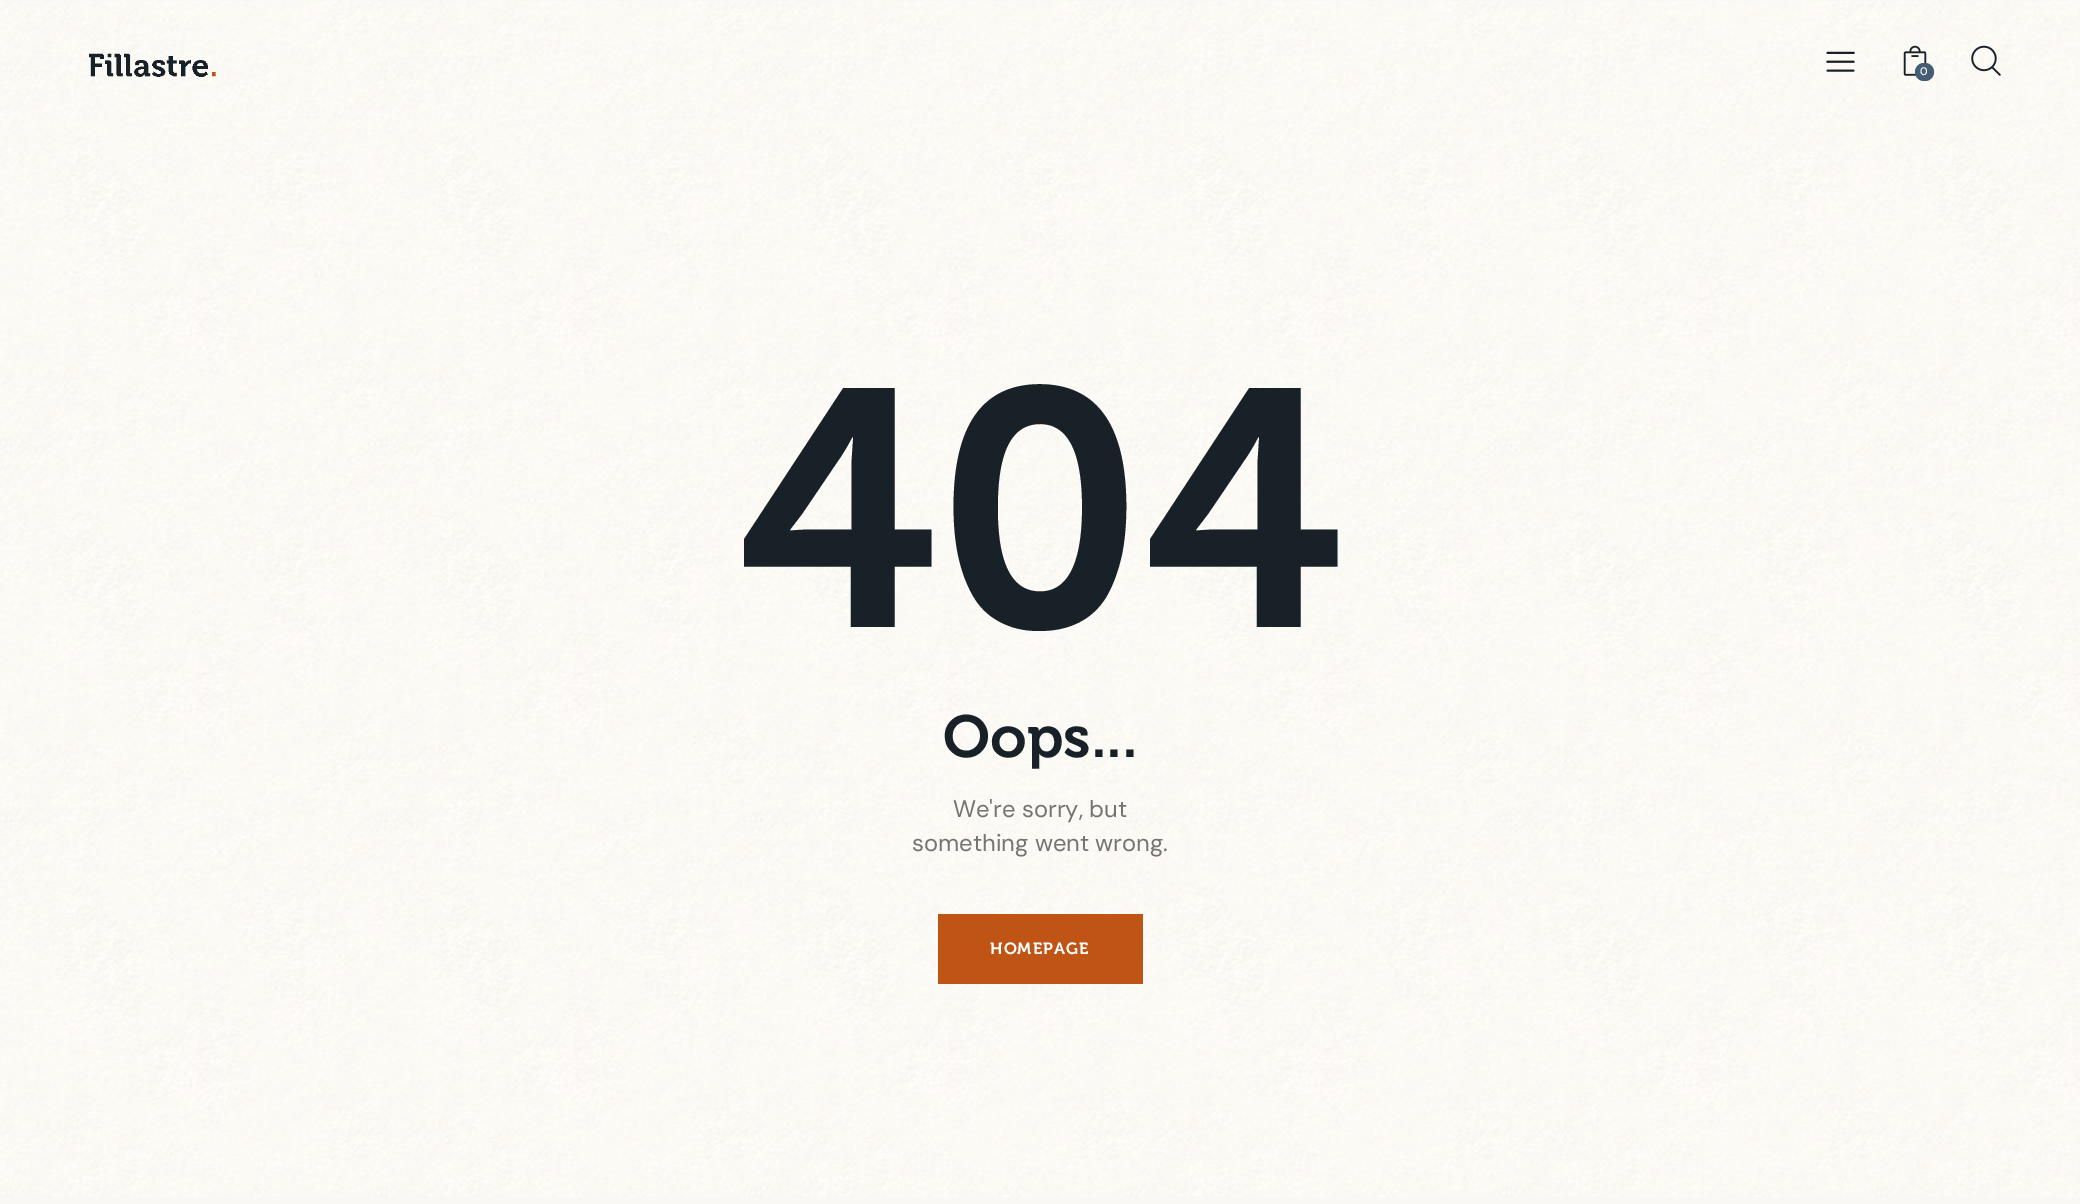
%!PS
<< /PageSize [2080 1204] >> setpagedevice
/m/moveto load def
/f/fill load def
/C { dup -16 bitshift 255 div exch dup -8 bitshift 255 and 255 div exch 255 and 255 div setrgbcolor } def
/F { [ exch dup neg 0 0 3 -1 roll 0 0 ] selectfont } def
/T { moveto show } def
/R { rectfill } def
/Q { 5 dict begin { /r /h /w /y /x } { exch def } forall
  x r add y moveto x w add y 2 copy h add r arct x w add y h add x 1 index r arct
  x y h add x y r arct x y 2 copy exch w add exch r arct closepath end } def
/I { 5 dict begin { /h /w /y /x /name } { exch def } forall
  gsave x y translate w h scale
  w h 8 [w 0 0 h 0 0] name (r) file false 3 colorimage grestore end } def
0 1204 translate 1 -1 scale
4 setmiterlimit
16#FAF8F4 C
0 0 2080 1204 R
(1.rgb) 0 1 2080 1196 I
(2.rgb) 89 53 127 24 I
(3.rgb) 1826 51 29 21 I
(4.rgb) 1903 45 24 31 I
16#435E74 C
1915 63 19 18 9 Q f
/DMSans-Medium 11 F
16#FFFFFF C
(0) 1920 75 T
(5.rgb) 1971 45 30 31 I
/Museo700-SemiBold 338 F
16#182127 C
(404) 738 627 T
/Museo700-SemiBold 59 F
(Oops...) 943 757 T
/DMSans-Regular 23.75 F
16#767470 C
(We're sorry, but) 953 817 T
(something went wrong.) 912 851 T
16#BF5415 C
938 914 205 70 R
/Museo700-SemiBold 16.25 F
16#FFFFFF C
990 954 m 1 0 (HOMEPAGE) ashow
showpage
